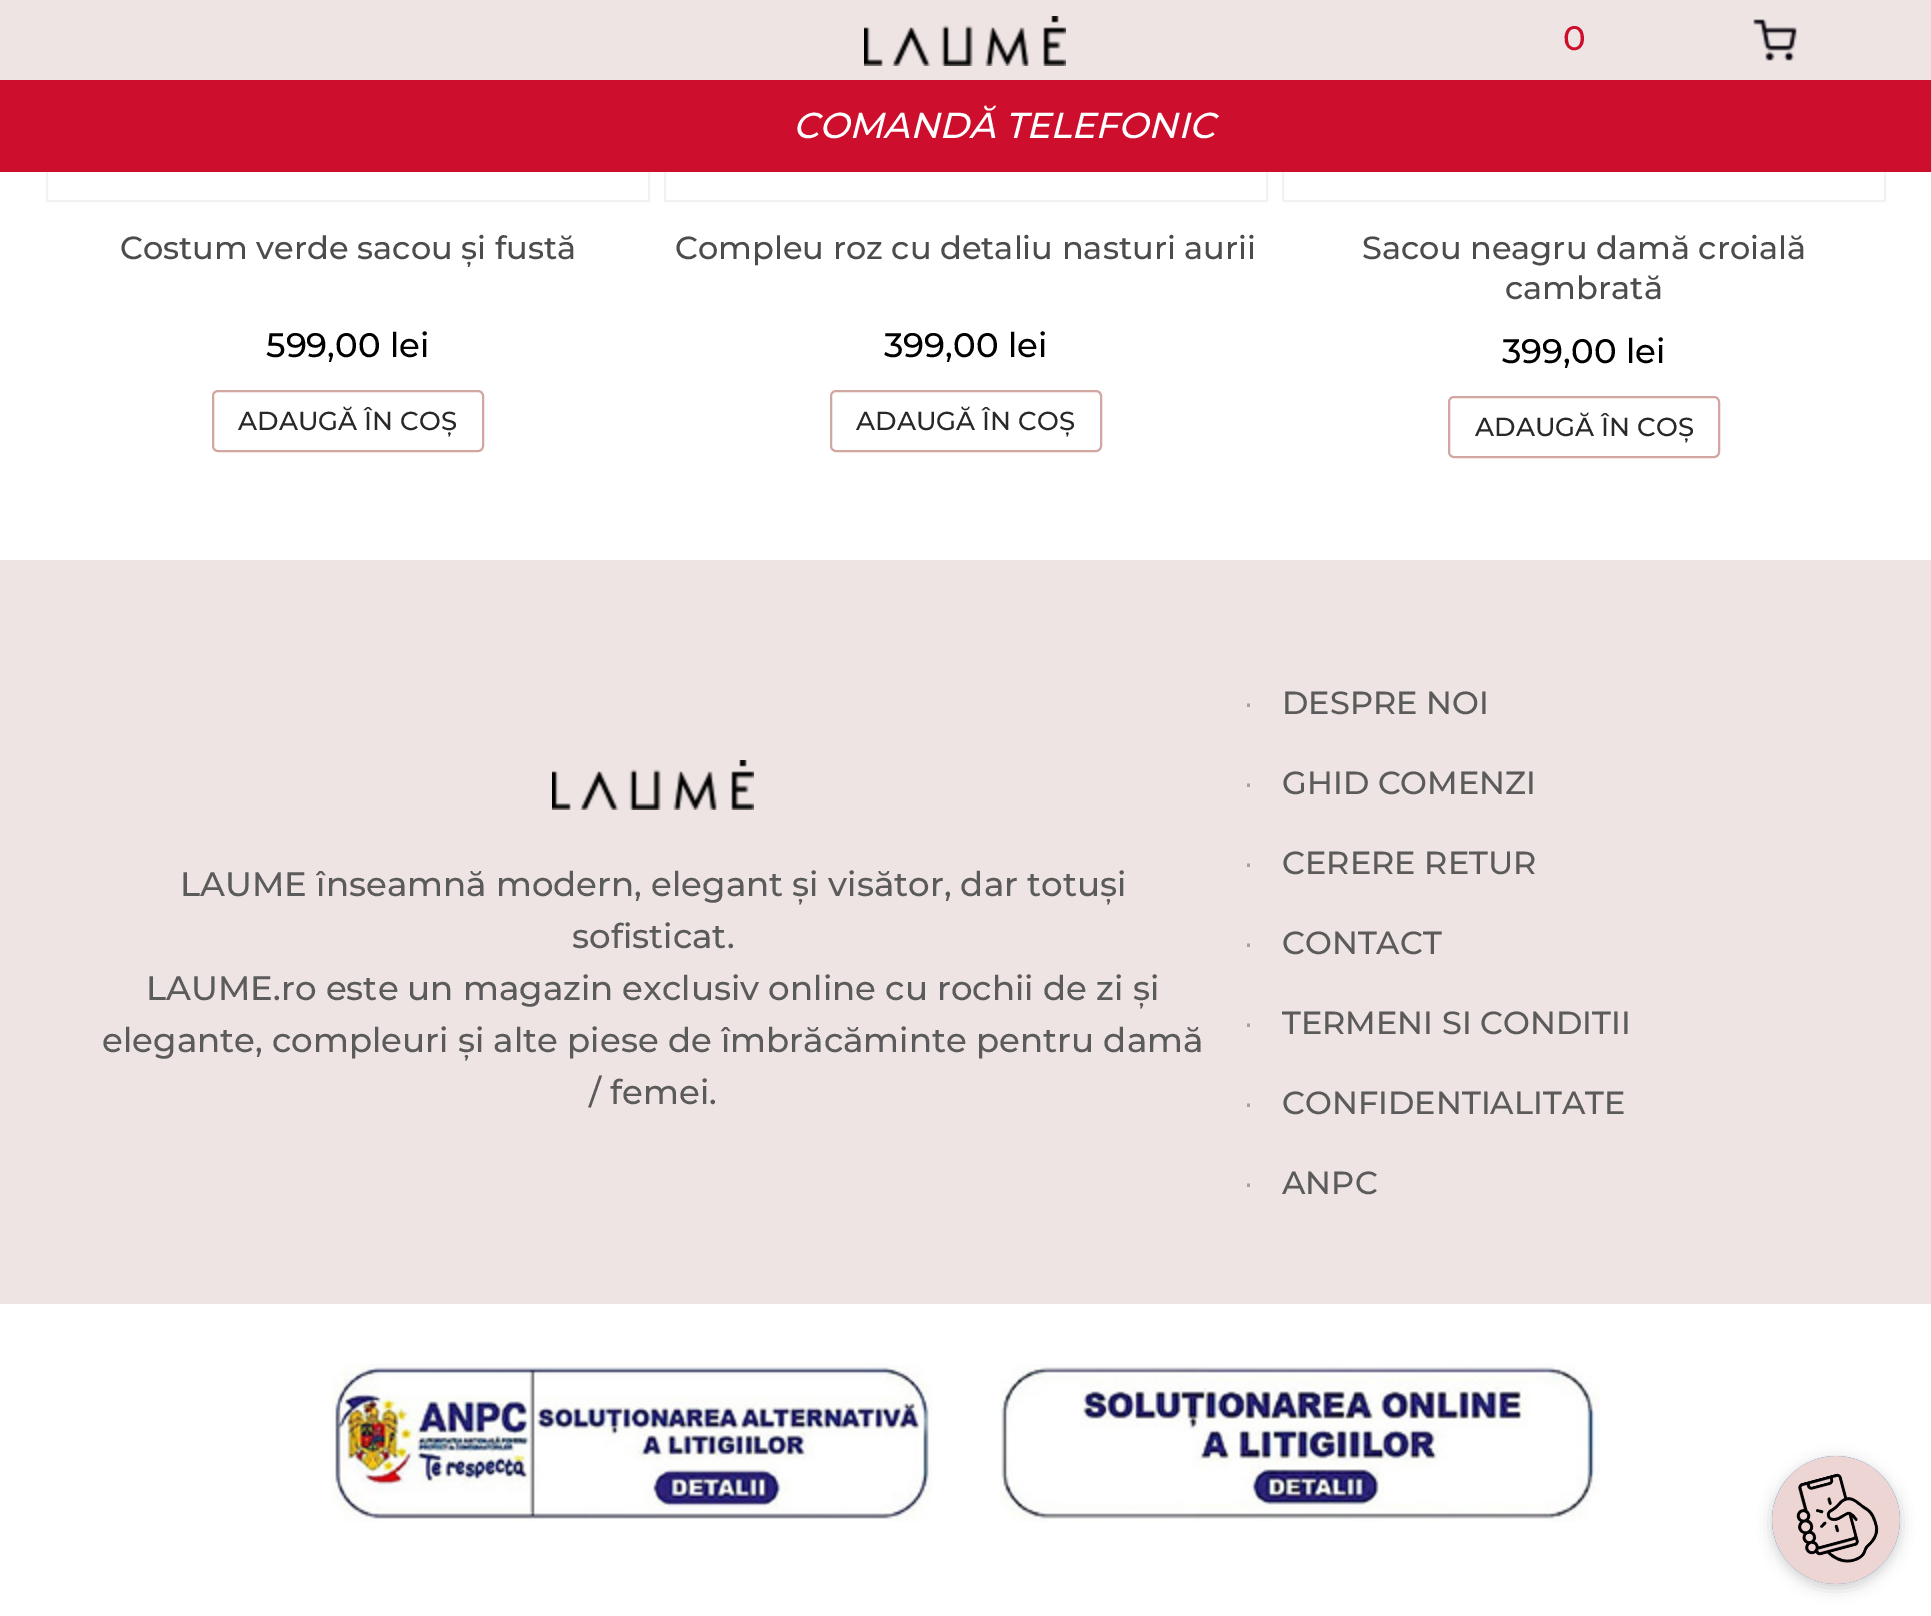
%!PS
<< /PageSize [1931 1616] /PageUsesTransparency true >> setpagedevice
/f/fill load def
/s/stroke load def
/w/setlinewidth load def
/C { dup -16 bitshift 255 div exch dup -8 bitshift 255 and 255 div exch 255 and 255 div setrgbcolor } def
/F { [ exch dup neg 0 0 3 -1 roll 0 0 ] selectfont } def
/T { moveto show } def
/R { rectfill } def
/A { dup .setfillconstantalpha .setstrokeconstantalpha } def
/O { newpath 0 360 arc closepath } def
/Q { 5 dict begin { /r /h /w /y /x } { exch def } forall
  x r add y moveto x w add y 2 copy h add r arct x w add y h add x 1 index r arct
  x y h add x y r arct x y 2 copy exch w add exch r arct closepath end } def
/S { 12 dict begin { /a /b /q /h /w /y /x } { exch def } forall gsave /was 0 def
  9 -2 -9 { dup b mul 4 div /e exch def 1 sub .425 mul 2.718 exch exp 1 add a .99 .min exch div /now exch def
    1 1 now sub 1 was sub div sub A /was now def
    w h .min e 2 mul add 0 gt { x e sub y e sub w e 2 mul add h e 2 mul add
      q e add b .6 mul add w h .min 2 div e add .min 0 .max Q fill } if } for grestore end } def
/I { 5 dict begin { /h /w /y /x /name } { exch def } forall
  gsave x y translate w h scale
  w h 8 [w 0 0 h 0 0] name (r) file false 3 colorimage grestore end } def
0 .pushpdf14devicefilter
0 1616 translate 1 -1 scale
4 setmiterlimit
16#FFFFFF C
0 0 1931 1616 R
16#F2F2F2 C
2 w
47 -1 602 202 rectstroke
665 -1 602 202 rectstroke
1283 -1 602 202 rectstroke
16#EEE4E3 C
0 0 1931 80 R
(1.rgb) 864 16 202 50 I
/Montserrat-Thin 34 F
16#CD0E2D C
(0) 1563 50 T
(2.rgb) 1753 19 44 42 I
/Montserrat-Thin 32 F
16#4C4C4C C
(Costum verde sacou și fustă) 120 259 T
/Montserrat-Thin 34 F
16#000000 C
(599,00 lei) 266 357 T
16#D2A6A1 C
213 391 270 60 5 Q s
/Montserrat-Thin 26 F
16#282828 C
(ADAUGĂ ÎN COȘ) 238 430 T
/Montserrat-Thin 32 F
16#4C4C4C C
(Compleu roz cu detaliu nasturi aurii) 675 259 T
/Montserrat-Thin 34 F
16#000000 C
(399,00 lei) 884 357 T
16#D2A6A1 C
831 391 270 60 5 Q s
/Montserrat-Thin 26 F
16#282828 C
(ADAUGĂ ÎN COȘ) 856 430 T
/Montserrat-Thin 32 F
16#4C4C4C C
(Sacou neagru damă croială) 1362 259 T
(cambrată) 1505 299 T
/Montserrat-Thin 34 F
16#000000 C
(399,00 lei) 1502 363 T
16#D2A6A1 C
1449 397 270 60 5 Q s
/Montserrat-Thin 26 F
16#282828 C
(ADAUGĂ ÎN COȘ) 1475 436 T
16#CD0E2D C
0 80 1931 92 R
/Montserrat-ThinItalic 36 F
16#FFFFFF C
(COMANDĂ TELEFONIC) 793 138 T
16#EEE4E3 C
0 560 1931 744 R
(1.rgb) 552 760 202 50 I
/Montserrat-Thin 34 F
16#5B5B5B C
(LAUME înseamnă modern, elegant și visător, dar totuși) 180 896 T
(sofisticat.) 572 948 T
(LAUME.ro este un magazin exclusiv online cu rochii de zi și) 146 1000 T
(elegante, compleuri și alte piese de îmbrăcăminte pentru damă) 102 1052 T
(/ femei.) 589 1104 T
/LiberationSans-Regular 32 F
16#A2A2A2 C
(∙) 1244 714 T
/Montserrat-Thin 32 F
16#5B5B5B C
(DESPRE NOI) 1282 714 T
/LiberationSans-Regular 32 F
16#A2A2A2 C
(∙) 1244 794 T
/Montserrat-Thin 32 F
16#5B5B5B C
(GHID COMENZI) 1282 794 T
/LiberationSans-Regular 32 F
16#A2A2A2 C
(∙) 1244 874 T
/Montserrat-Thin 32 F
16#5B5B5B C
(CERERE RETUR) 1282 874 T
/LiberationSans-Regular 32 F
16#A2A2A2 C
(∙) 1244 954 T
/Montserrat-Thin 32 F
16#5B5B5B C
(CONTACT) 1282 954 T
/LiberationSans-Regular 32 F
16#A2A2A2 C
(∙) 1244 1034 T
/Montserrat-Thin 32 F
16#5B5B5B C
(TERMENI SI CONDITII) 1282 1034 T
/LiberationSans-Regular 32 F
16#A2A2A2 C
(∙) 1244 1114 T
/Montserrat-Thin 32 F
16#5B5B5B C
(CONFIDENTIALITATE) 1282 1114 T
/LiberationSans-Regular 32 F
16#A2A2A2 C
(∙) 1244 1194 T
/Montserrat-Thin 32 F
16#5B5B5B C
(ANPC) 1282 1194 T
(3.rgb) 332 1364 600 158 I
(4.rgb) 1000 1364 600 158 I
16#000000 C
1772 1460 128 128 64 7 .2 S
16#1E73BE C
1836 1520 64 O f
(5.rgb) 1772 1456 128 128 I
.poppdf14devicefilter showpage
